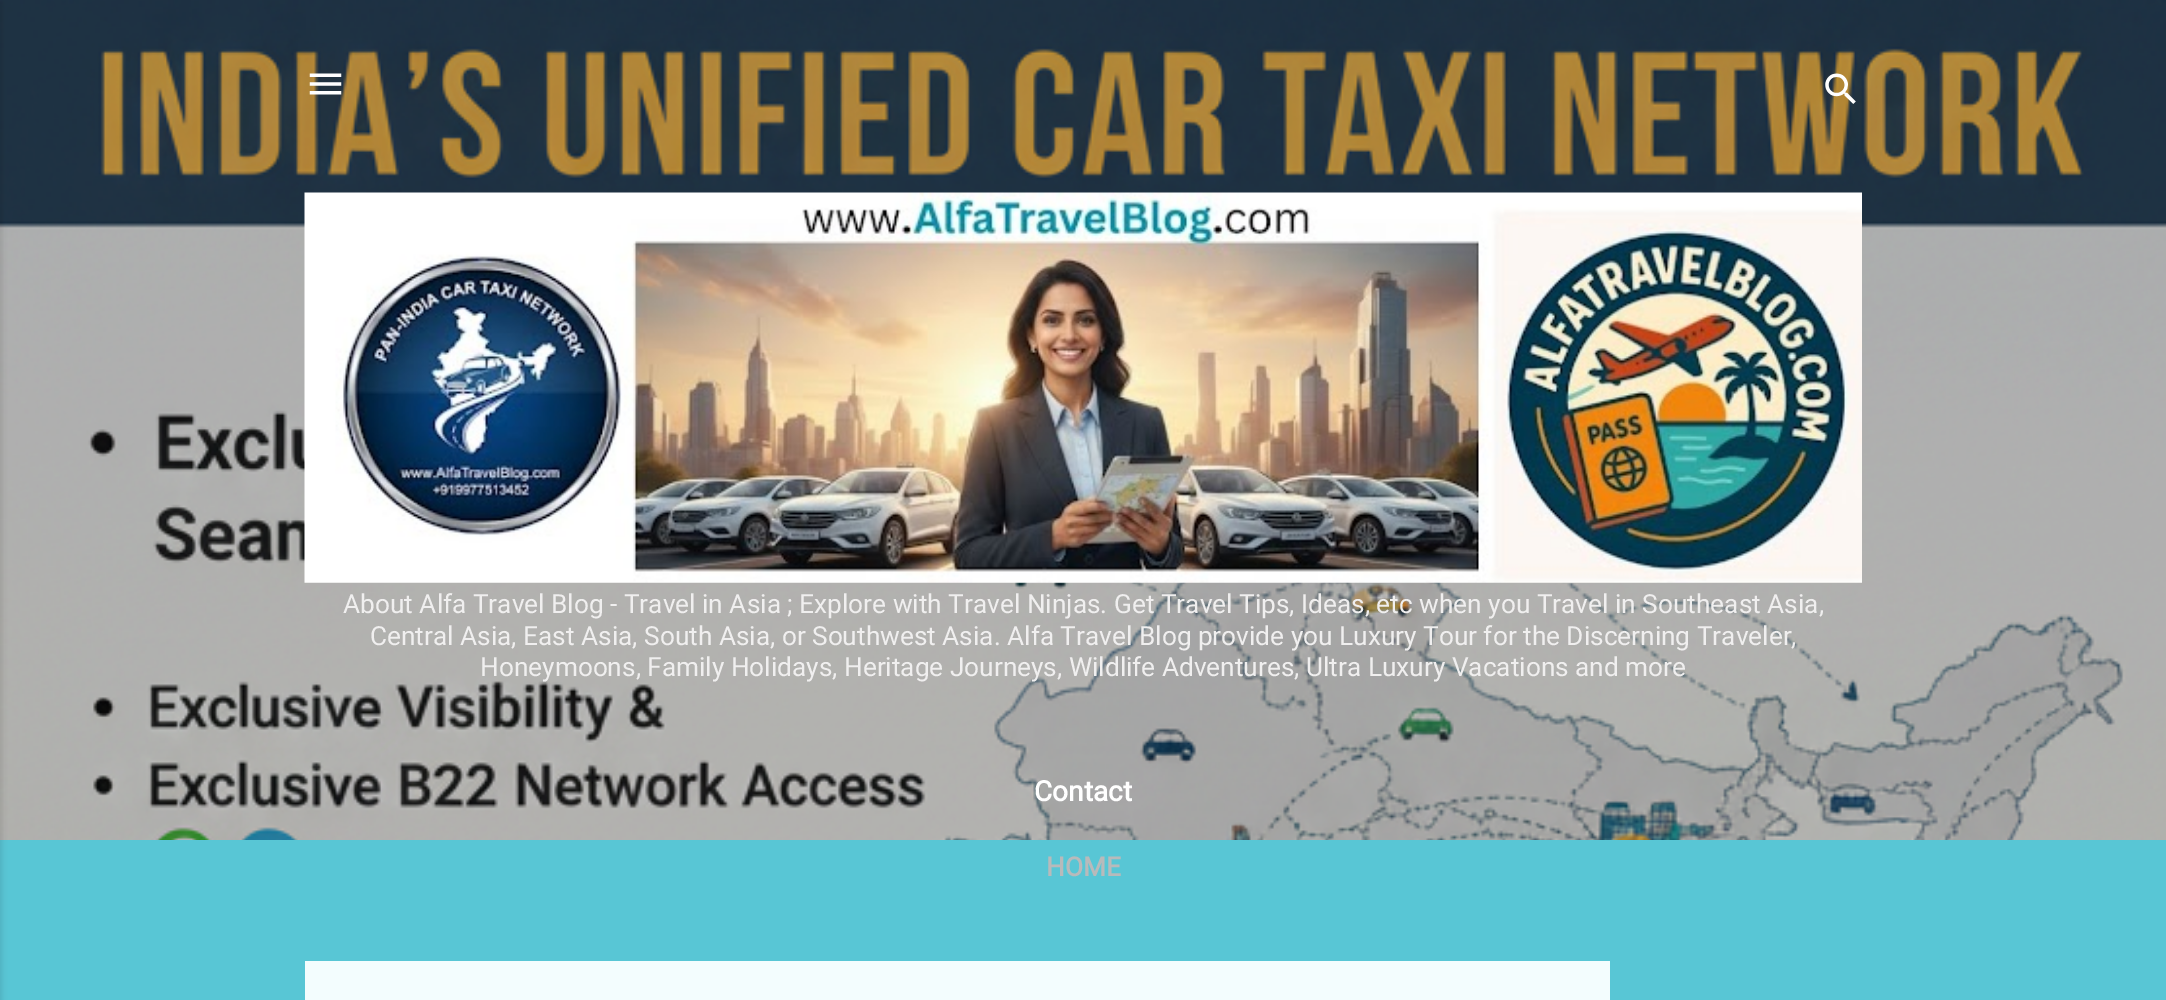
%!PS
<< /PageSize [2166 1000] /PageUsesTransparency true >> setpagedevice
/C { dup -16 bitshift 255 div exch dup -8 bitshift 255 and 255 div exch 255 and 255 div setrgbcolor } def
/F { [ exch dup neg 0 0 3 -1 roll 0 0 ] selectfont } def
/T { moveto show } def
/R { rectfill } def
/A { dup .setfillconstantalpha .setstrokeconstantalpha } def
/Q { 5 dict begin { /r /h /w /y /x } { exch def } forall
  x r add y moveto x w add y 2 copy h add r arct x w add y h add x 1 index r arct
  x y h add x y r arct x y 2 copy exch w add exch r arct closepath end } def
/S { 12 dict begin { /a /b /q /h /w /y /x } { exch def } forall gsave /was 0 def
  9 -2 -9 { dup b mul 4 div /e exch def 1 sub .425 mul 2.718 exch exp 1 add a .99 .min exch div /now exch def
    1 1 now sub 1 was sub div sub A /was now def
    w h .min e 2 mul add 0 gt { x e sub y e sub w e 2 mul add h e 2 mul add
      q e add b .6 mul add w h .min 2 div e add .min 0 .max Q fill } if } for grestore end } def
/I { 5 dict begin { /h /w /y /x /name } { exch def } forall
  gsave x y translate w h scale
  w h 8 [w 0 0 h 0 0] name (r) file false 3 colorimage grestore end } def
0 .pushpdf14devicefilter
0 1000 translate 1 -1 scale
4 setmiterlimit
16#58C6D5 C
0 0 2166 1000 R
(1.rgb) 0 0 2166 840 I
16#000000 C
-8 2 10 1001 0 2.5 .1 S
(2.rgb) 309 73 33 22 I
(3.rgb) 1825 73 31 31 I
(4.rgb) 304 192 1558 391 I
/Roboto-Regular 26.25 F
16#F0EFEF C
(About Alfa Travel) 343 613 T
(Blog - Travel in Asia ; Explore with Travel Ninjas. Get Travel Tips, Ideas, etc when you Travel in Southeast Asia,) 551 613 T
(Central Asia, East Asia, South Asia, or Southwest Asia. Alfa Travel Blog provide you Luxury Tour for the Discerning Traveler,) 370 645 T
(Honeymoons, Family Holidays, Heritage Journeys, Wildlife Adventures, Ultra Luxury Vacations and more) 480 676 T
/Roboto-Bold 28 F
16#FFFFFF C
(Contact) 1034 801 T
/Roboto-Bold 26.25 F
16#B8BABB C
(HOME) 1046 876 T
16#F3FDFE C
305 961 1305 39 R
.poppdf14devicefilter showpage
